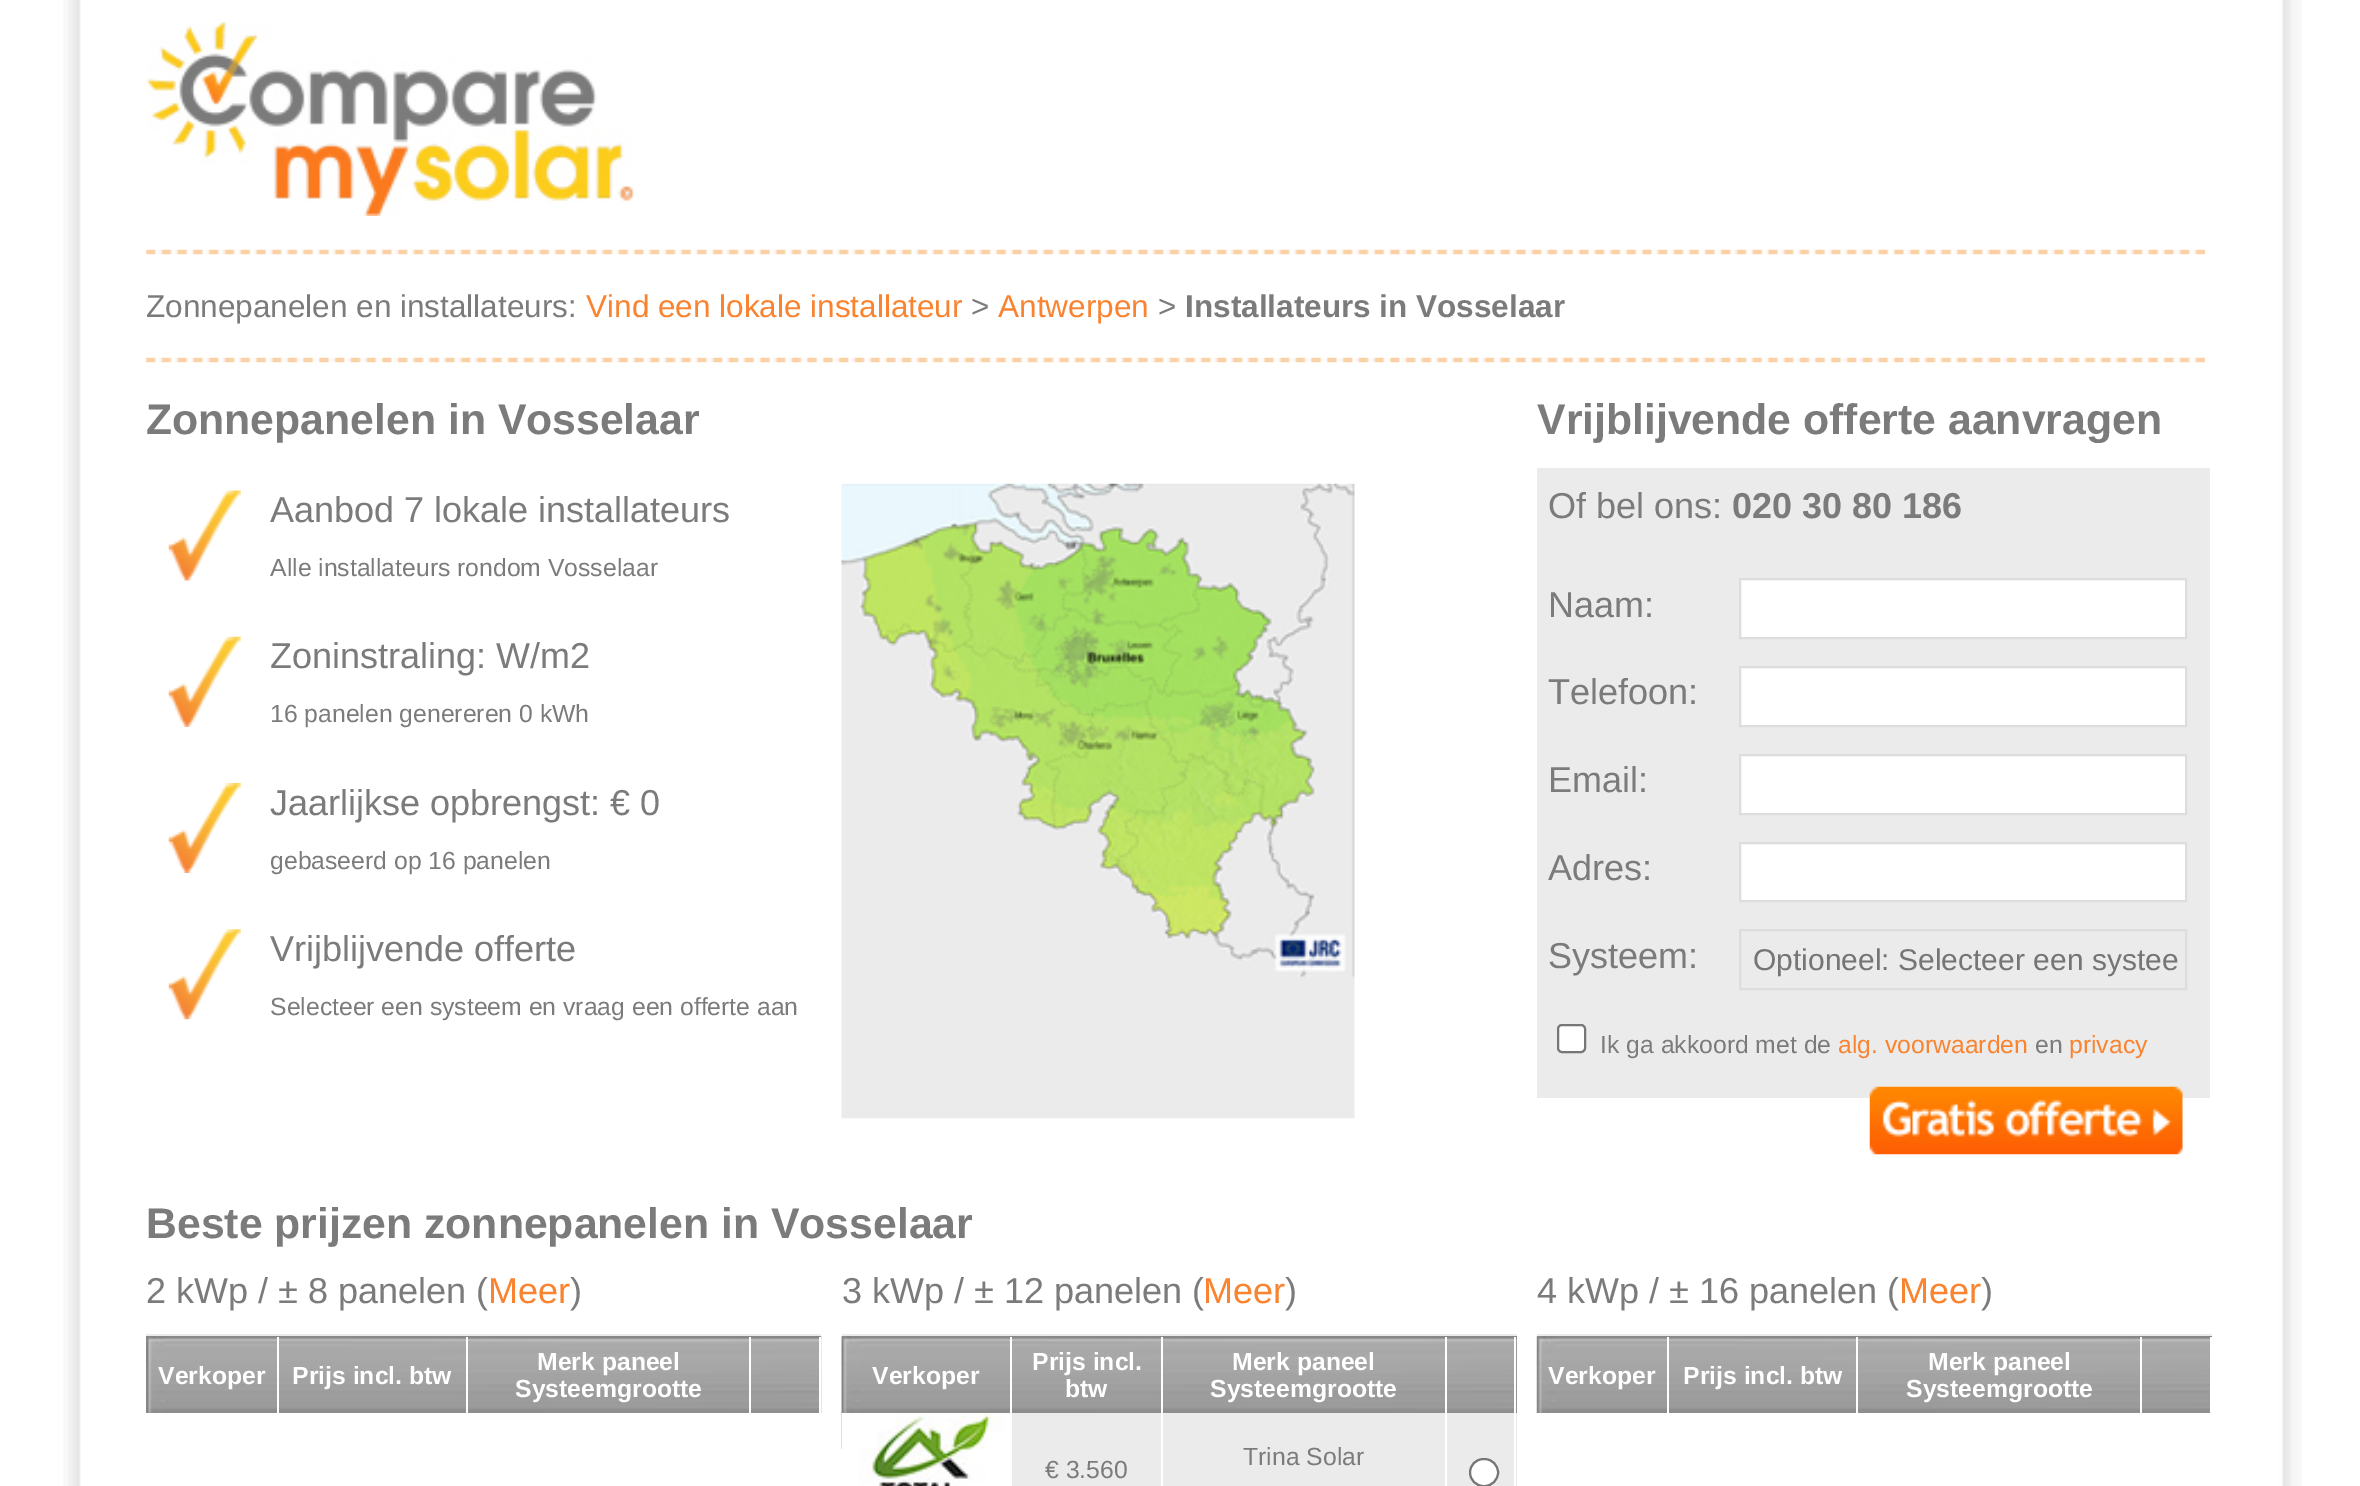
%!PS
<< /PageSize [2360 1486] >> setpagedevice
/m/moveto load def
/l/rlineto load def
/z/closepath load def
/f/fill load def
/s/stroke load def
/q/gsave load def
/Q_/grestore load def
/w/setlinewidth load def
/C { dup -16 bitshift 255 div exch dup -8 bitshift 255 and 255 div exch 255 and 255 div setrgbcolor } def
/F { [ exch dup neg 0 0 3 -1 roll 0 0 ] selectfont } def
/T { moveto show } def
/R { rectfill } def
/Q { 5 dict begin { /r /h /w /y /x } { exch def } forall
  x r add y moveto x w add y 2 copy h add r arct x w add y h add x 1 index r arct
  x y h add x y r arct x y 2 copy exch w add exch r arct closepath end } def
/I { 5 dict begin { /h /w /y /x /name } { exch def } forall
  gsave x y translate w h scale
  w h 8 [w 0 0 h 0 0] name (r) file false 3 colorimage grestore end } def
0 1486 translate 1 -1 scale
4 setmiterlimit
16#FFFFFF C
0 0 2360 1486 R
(1.rgb) 63 0 2239 1486 I
(2.rgb) 146 22 489 194 I
(3.rgb) 146 249 2059 6 I
/LiberationSans-Regular 31.5 F
16#7B7B7B C
(Zonnepanelen en installateurs:) 146 317 T
16#F9832E C
(Vind een lokale installateur) 586 317 T
16#7B7B7B C
(>) 971 317 T
16#F9832E C
(Antwerpen) 998 317 T
16#7B7B7B C
(>) 1158 317 T
/LiberationSans-Bold 31.5 F
(Installateurs in Vosselaar) 1185 317 T
(3.rgb) 146 357 2059 6 I
/LiberationSans-Bold 42.75 F
(Zonnepanelen in Vosselaar) 146 434 T
(4.rgb) 168 490 73 91 I
/LiberationSans-Regular 36 F
(Aanbod 7 lokale installateurs) 270 522 T
/LiberationSans-Regular 24.75 F
(Alle installateurs rondom Vosselaar) 270 576 T
(5.rgb) 168 636 73 91 I
/LiberationSans-Regular 36 F
(Zoninstraling: W/m2) 270 668 T
/LiberationSans-Regular 24.75 F
(16 panelen genereren 0 kWh) 270 722 T
(6.rgb) 168 783 73 90 I
/LiberationSans-Regular 36 F
(Jaarlijkse opbrengst: € 0) 270 815 T
/LiberationSans-Regular 24.75 F
(gebaseerd op 16 panelen) 270 869 T
(7.rgb) 168 929 73 91 I
/LiberationSans-Regular 36 F
(Vrijblijvende offerte) 270 961 T
/LiberationSans-Regular 24.75 F
(Selecteer een systeem en vraag een offerte aan) 270 1015 T
(8.rgb) 841 483 514 636 I
/LiberationSans-Bold 42.75 F
(Vrijblijvende offerte aanvragen) 1537 434 T
16#EBEBEB C
1537 468 673 630 R
/LiberationSans-Regular 36 F
16#7B7B7B C
(Of bel ons:) 1548 518 T
/LiberationSans-Bold 36 F
(020 30 80 186) 1732 518 T
/LiberationSans-Regular 36 F
(Naam:) 1548 617 T
16#FFFFFF C
1740 579 m 446 0 l 0 59 l -446 0 l z q f Q_
16#DDDDDD C
2 w
s
16#7B7B7B C
(Telefoon:) 1548 704 T
16#FFFFFF C
1740 667 m 446 0 l 0 59 l -446 0 l z q f Q_
16#DDDDDD C
s
16#7B7B7B C
(Email:) 1548 792 T
16#FFFFFF C
1740 755 m 446 0 l 0 59 l -446 0 l z q f Q_
16#DDDDDD C
s
16#7B7B7B C
(Adres:) 1548 880 T
16#FFFFFF C
1740 843 m 446 0 l 0 58 l -446 0 l z q f Q_
16#DDDDDD C
s
16#7B7B7B C
(Systeem:) 1548 968 T
16#DDDDDD C
1740 930 446 59 rectstroke
/LiberationSans-Regular 30 F
16#757575 C
(Optioneel: Selecteer een systee) 1753 970 T
16#FFFFFF C
1558 1025 27 27 4 Q q f Q_
16#767676 C
s
/LiberationSans-Regular 24.75 F
16#7B7B7B C
(Ik ga akkoord met de) 1600 1053 T
16#F9832E C
(alg. voorwaarden) 1838 1053 T
16#7B7B7B C
(en) 2035 1053 T
16#F9832E C
(privacy) 2069 1053 T
(9.rgb) 1869 1086 314 69 I
/LiberationSans-Bold 42.75 F
16#7B7B7B C
(Beste prijzen zonnepanelen in Vosselaar) 146 1238 T
/LiberationSans-Regular 36 F
(2 kWp / ± 8 panelen \() 146 1303 T
16#F9832E C
(Meer) 488 1303 T
16#7B7B7B C
(\)) 570 1303 T
16#8B8B8B C
146 1336 675 77 R
(10.rgb) 146 1336 676 77 I
16#EBEBEB C
146 1334 675 2 R
16#FFFFFF C
277 1337 2 76 R
/LiberationSans-Bold 24.75 F
(Verkoper) 158 1384 T
466 1337 2 76 R
(Prijs incl. btw) 292 1384 T
749 1337 2 76 R
(Merk paneel) 537 1370 T
(Systeemgrootte) 515 1397 T
819 1337 2 76 R
/LiberationSans-Regular 36 F
16#7B7B7B C
(3 kWp / ± 12 panelen \() 842 1303 T
16#F9832E C
(Meer) 1203 1303 T
16#7B7B7B C
(\)) 1285 1303 T
16#8B8B8B C
842 1336 675 77 R
(11.rgb) 841 1336 676 113 I
16#EBEBEB C
842 1334 675 2 R
16#FFFFFF C
1010 1337 2 112 R
/LiberationSans-Bold 24.75 F
(Verkoper) 872 1384 T
1161 1337 2 112 R
(Prijs incl.) 1032 1370 T
(btw) 1065 1397 T
1445 1337 2 112 R
(Merk paneel) 1232 1370 T
(Systeemgrootte) 1210 1397 T
1514 1337 2 76 R
16#EBEBEB C
1012 1413 149 73 R
(12.rgb) 841 1413 169 73 I
1163 1413 282 73 R
/LiberationSans-Regular 24.75 F
16#7B7B7B C
(Trina Solar) 1243 1465 T
16#EBEBEB C
1447 1413 70 73 R
16#FFFFFF C
1514 1413 2 73 R
1470 1459 28 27 13.5 Q q f Q_
16#767676 C
s
16#7B7B7B C
(€ 3.560) 1045 1478 T
/LiberationSans-Regular 36 F
(4 kWp / ± 16 panelen \() 1537 1303 T
16#F9832E C
(Meer) 1899 1303 T
16#7B7B7B C
(\)) 1981 1303 T
16#8B8B8B C
1537 1336 675 1 R
(13.rgb) 1536 1336 676 77 I
16#EBEBEB C
1537 1334 675 2 R
16#FFFFFF C
1667 1337 2 76 R
/LiberationSans-Bold 24.75 F
(Verkoper) 1548 1384 T
1856 1337 2 76 R
(Prijs incl. btw) 1683 1384 T
2140 1337 2 76 R
(Merk paneel) 1928 1370 T
(Systeemgrootte) 1906 1397 T
2210 1337 2 76 R
showpage
